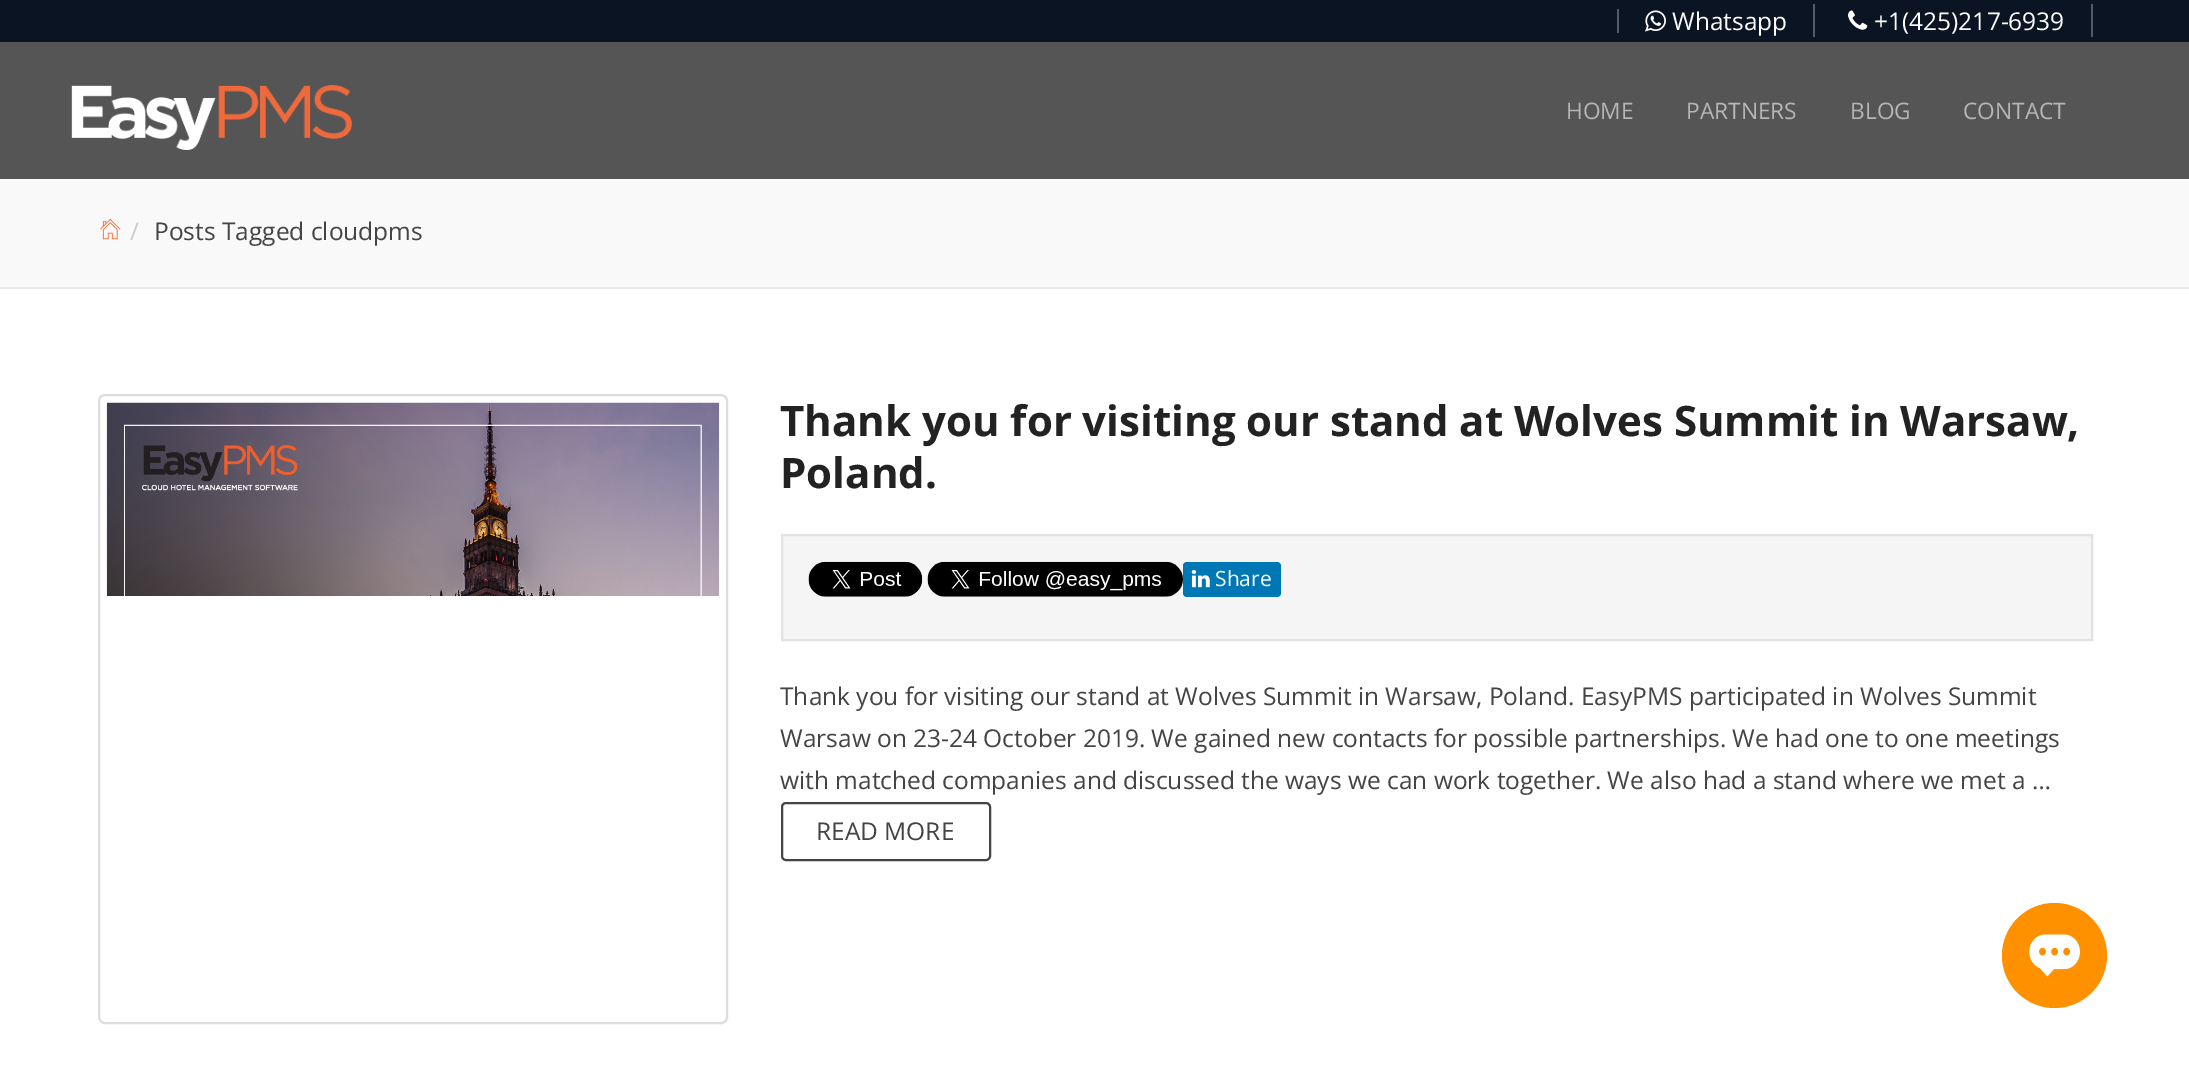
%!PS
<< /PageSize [2189 1090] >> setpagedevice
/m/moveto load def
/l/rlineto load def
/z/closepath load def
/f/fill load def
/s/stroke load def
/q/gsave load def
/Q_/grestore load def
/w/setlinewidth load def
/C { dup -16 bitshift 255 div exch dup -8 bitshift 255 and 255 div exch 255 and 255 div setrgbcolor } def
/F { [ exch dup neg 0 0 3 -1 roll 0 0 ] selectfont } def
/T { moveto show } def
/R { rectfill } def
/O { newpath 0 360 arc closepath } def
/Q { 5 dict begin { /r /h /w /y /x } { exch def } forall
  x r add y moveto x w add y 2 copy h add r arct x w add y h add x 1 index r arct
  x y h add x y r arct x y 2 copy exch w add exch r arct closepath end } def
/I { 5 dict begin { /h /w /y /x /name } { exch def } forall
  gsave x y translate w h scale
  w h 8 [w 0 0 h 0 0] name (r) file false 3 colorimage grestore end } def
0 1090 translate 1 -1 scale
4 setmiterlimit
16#FFFFFF C
0 0 2189 1090 R
16#555555 C
0 42 2189 137 R
16#0B1423 C
0 0 2189 42 R
16#545B65 C
1617 9 2 24 R
1813 4 2 33 R
(1.rgb) 1645 10 21 22 I
/OpenSans-Regular 24.5 F
16#FFFFFF C
(Whatsapp) 1672 30 T
16#545B65 C
2091 4 2 33 R
(2.rgb) 1848 10 20 20 I
16#FFFFFF C
(+1\(425\)217-6939) 1874 30 T
(3.rgb) 71 85 281 65 I
/OpenSans-Regular 22.75 F
16#B6B6B6 C
(HOME) 1566 119 T
(PARTNERS) 1686 119 T
(BLOG) 1850 119 T
(CONTACT) 1963 119 T
16#F9F9F9 C
0 179 2189 108 R
16#EAEAEA C
0 287 2189 2 R
(4.rgb) 100 218 21 22 I
/OpenSans-Regular 24.5 F
16#CCCCCC C
(/) 130 240 T
16#444444 C
(Posts Tagged cloudpms) 154 240 T
16#DDDDDD C
2 w
99 395 628 628 6 Q s
(5.rgb) 106 402 614 194 I
/OpenSans-Bold 42 F
16#222222 C
(Thank you for visiting our stand at Wolves Summit in Warsaw,) 780 436 T
(Poland.) 780 488 T
16#F5F5F5 C
782 535 m 1310 0 l 0 105 l -1310 0 l z q f Q_
16#E2E2E2 C
s
(6.rgb) 808 561 115 36 I
(7.rgb) 927 561 256 36 I
16#0077B5 C
1183 562 98 35 4 Q f
(8.rgb) 1191 570 19 18 I
/OpenSans-Regular 21 F
16#FFFFFF C
(Share) 1215 586 T
/OpenSans-Regular 24.5 F
16#444444 C
(Thank you for visiting our stand at Wolves Summit in Warsaw, Poland. EasyPMS participated in Wolves Summit) 780 705 T
(Warsaw on 23-24 October 2019. We gained new contacts for possible partnerships. We had one to one meetings) 780 747 T
(with matched companies and discussed the ways we can work together. We also had a stand where we met a …) 780 789 T
782 803 208 57 4 Q s
(READ MORE) 816 840 T
16#FF9100 C
2054.5 955.5 52.5 O f
(9.rgb) 2029 934 51 43 I
showpage
